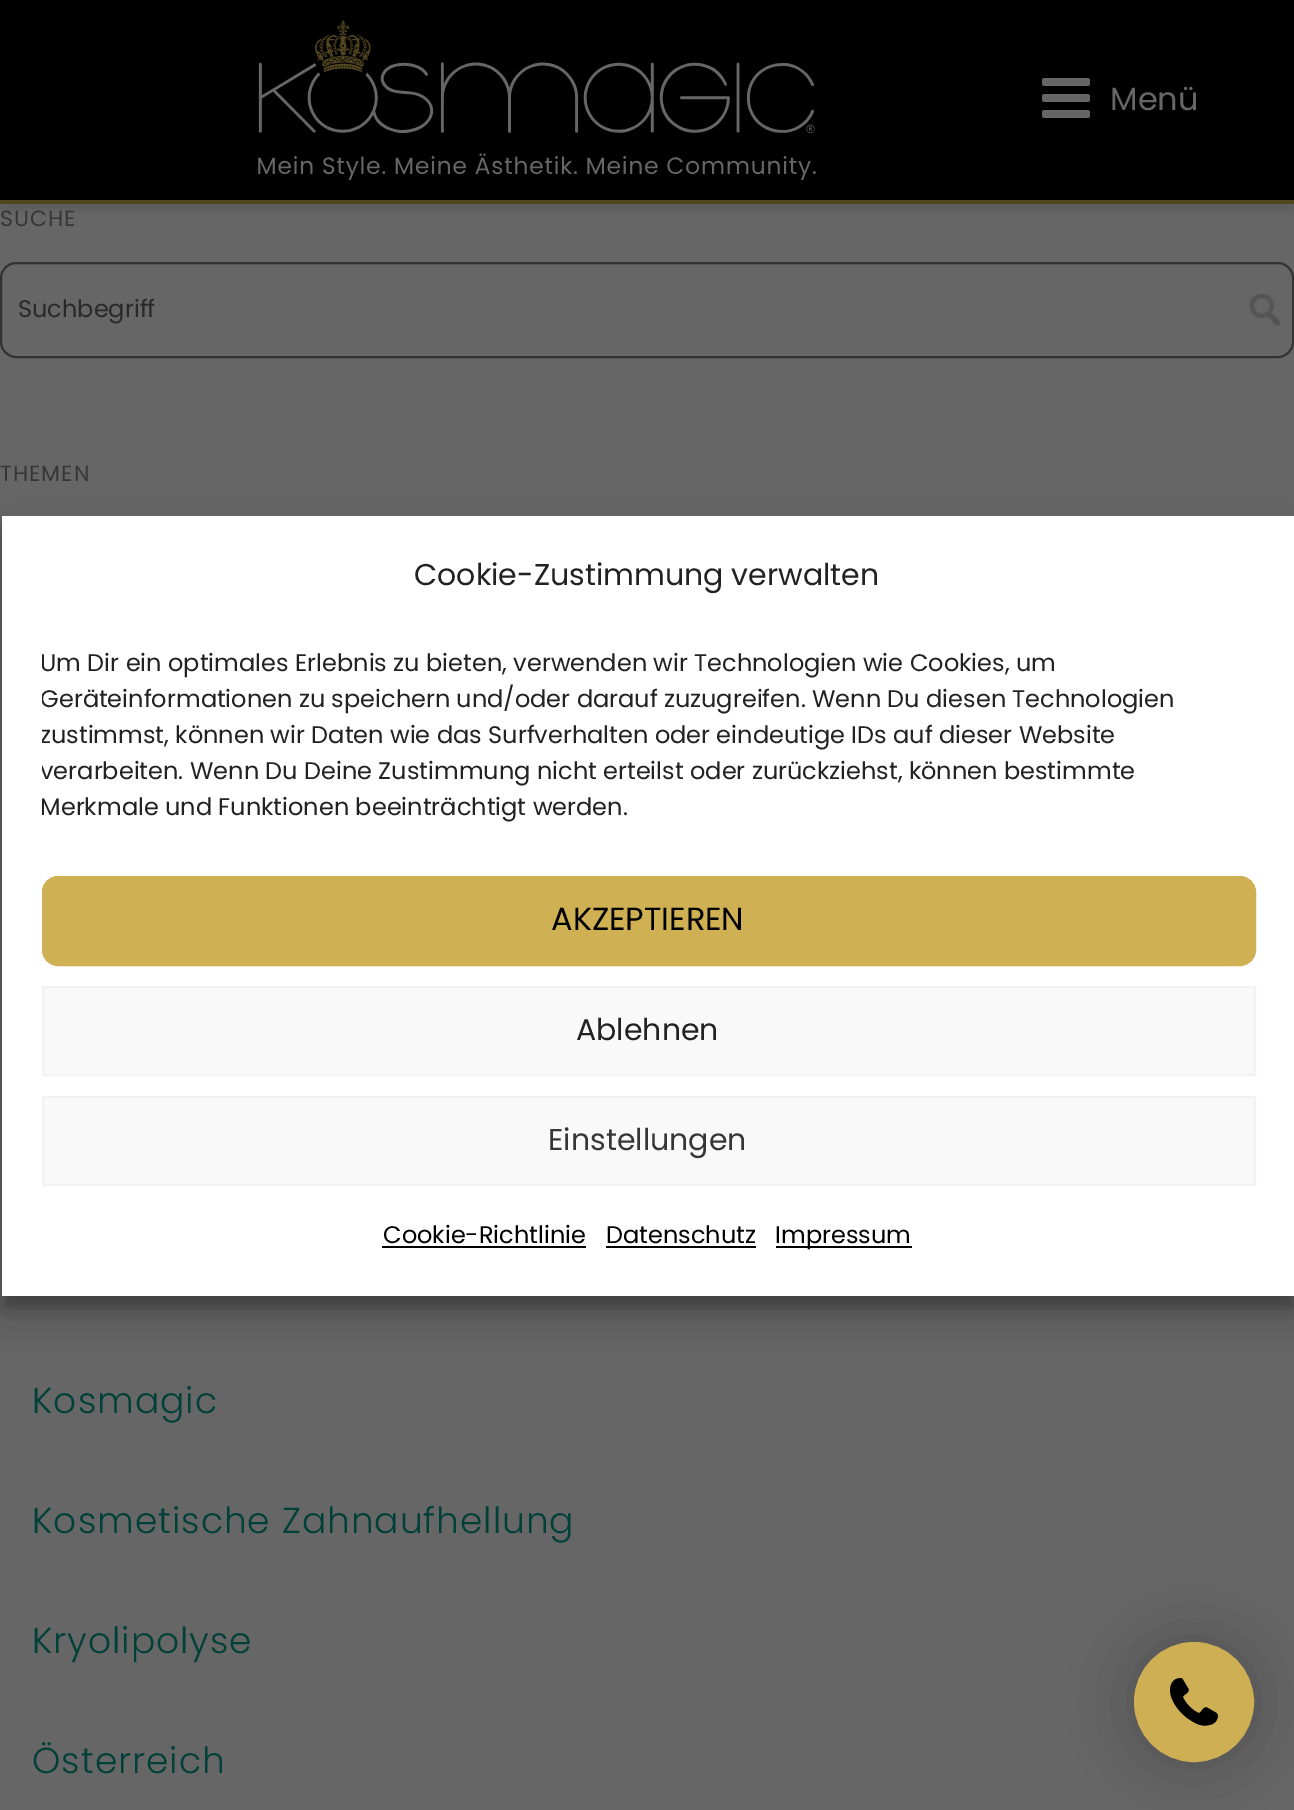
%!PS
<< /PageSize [1294 1810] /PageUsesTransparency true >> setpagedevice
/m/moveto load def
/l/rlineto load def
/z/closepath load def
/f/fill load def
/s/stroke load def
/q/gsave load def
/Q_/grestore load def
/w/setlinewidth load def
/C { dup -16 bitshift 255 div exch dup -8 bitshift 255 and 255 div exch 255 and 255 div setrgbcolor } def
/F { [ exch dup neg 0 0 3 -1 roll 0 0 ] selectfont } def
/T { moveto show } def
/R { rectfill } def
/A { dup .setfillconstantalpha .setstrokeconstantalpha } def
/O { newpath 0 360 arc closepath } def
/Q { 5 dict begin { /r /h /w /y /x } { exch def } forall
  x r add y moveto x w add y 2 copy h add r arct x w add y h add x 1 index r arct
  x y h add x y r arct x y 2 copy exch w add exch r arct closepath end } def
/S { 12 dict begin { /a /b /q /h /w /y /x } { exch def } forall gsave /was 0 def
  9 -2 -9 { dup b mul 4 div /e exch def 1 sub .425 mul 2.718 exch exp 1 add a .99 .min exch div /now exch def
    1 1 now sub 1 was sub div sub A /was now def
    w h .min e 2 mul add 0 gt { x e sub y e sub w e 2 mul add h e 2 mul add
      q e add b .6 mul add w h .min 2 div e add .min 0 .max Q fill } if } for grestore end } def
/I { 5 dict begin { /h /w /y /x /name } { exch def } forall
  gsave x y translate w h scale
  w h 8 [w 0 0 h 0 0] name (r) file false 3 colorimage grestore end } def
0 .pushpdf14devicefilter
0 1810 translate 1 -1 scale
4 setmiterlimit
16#666666 C
0 0 1294 1810 R
16#000000 C
0 6 1294 204 0 5 .1 S
0 0 1294 200 R
16#524621 C
0 200 1294 4 R
(1.rgb) 258 20 558 160 I
(2.rgb) 1042 78 48 40 I
/Poppins-Regular 32 F
16#666666 C
(Menü) 1110 110 T
/Poppins-Regular 22 F
16#363636 C
0 226 m 1 0 (SUCHE) ashow
(3.rgb) 1249 294 33 32 I
16#333333 C
2 w
1 263 1292 94 15 Q s
/Poppins-Regular 24 F
16#292929 C
(Suchbegriff) 18 317 T
/Poppins-Regular 22 F
16#363636 C
0 481 m 1 0 (THEMEN) ashow
/Poppins-Light 36 F
16#004038 C
32 1413 m 1 0 (Kosmagic) ashow
32 1533 m 1 0 (Kosmetische Zahnaufhellung) ashow
32 1653 m 1 0 (Kryolipolyse) ashow
32 1773 m 1 0 (Österreich) ashow
16#000000 C
2 528 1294 780 0 6 .23 S
2 536 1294 780 0 20 .19 S
16#FFFFFF C
2 516 1292 780 R
/Poppins-Regular 30 F
16#222222 C
(Cookie-Zustimmung verwalten) 414 585 T
q
42 646 1214 190 rectclip
/Poppins-Regular 24 F
(Um Dir ein optimales Erlebnis zu bieten, verwenden wir Technologien wie Cookies, um) 40 671 T
(Geräteinformationen zu speichern und/oder darauf zuzugreifen. Wenn Du diesen Technologien) 40 707 T
(zustimmst, können wir Daten wie das Surfverhalten oder eindeutige IDs auf dieser Website) 40 743 T
(verarbeiten. Wenn Du Deine Zustimmung nicht erteilst oder zurückziehst, können bestimmte) 40 779 T
(Merkmale und Funktionen beeinträchtigt werden.) 40 815 T
Q_
16#CFB053 C
46 880 1206 82 12 Q q f Q_
8 w
s
/Poppins-Regular 32 F
16#000000 C
(AKZEPTIEREN) 551 930 T
16#F9F9F9 C
43 987 m 1212 0 l 0 88 l -1212 0 l z q f Q_
16#F2F2F2 C
2 w
s
/Poppins-Regular 30 F
16#222222 C
(Ablehnen) 576 1040 T
16#F9F9F9 C
43 1097 m 1212 0 l 0 88 l -1212 0 l z q f Q_
16#F2F2F2 C
s
16#363636 C
(Einstellungen) 548 1150 T
/Poppins-Regular 24 F
16#000000 C
(Cookie-Richtlinie) 383 1243 T
382 1246 204 2 R
(Datenschutz) 606 1243 T
606 1246 150 2 R
776 1246 136 2 R
(Impressum) 775 1243 T
1134 1642 120 120 60 32 .2 S
16#CEAF53 C
1194 1702 58 O q f Q_
4 w
s
(4.rgb) 1170 1678 48 48 I
.poppdf14devicefilter showpage
